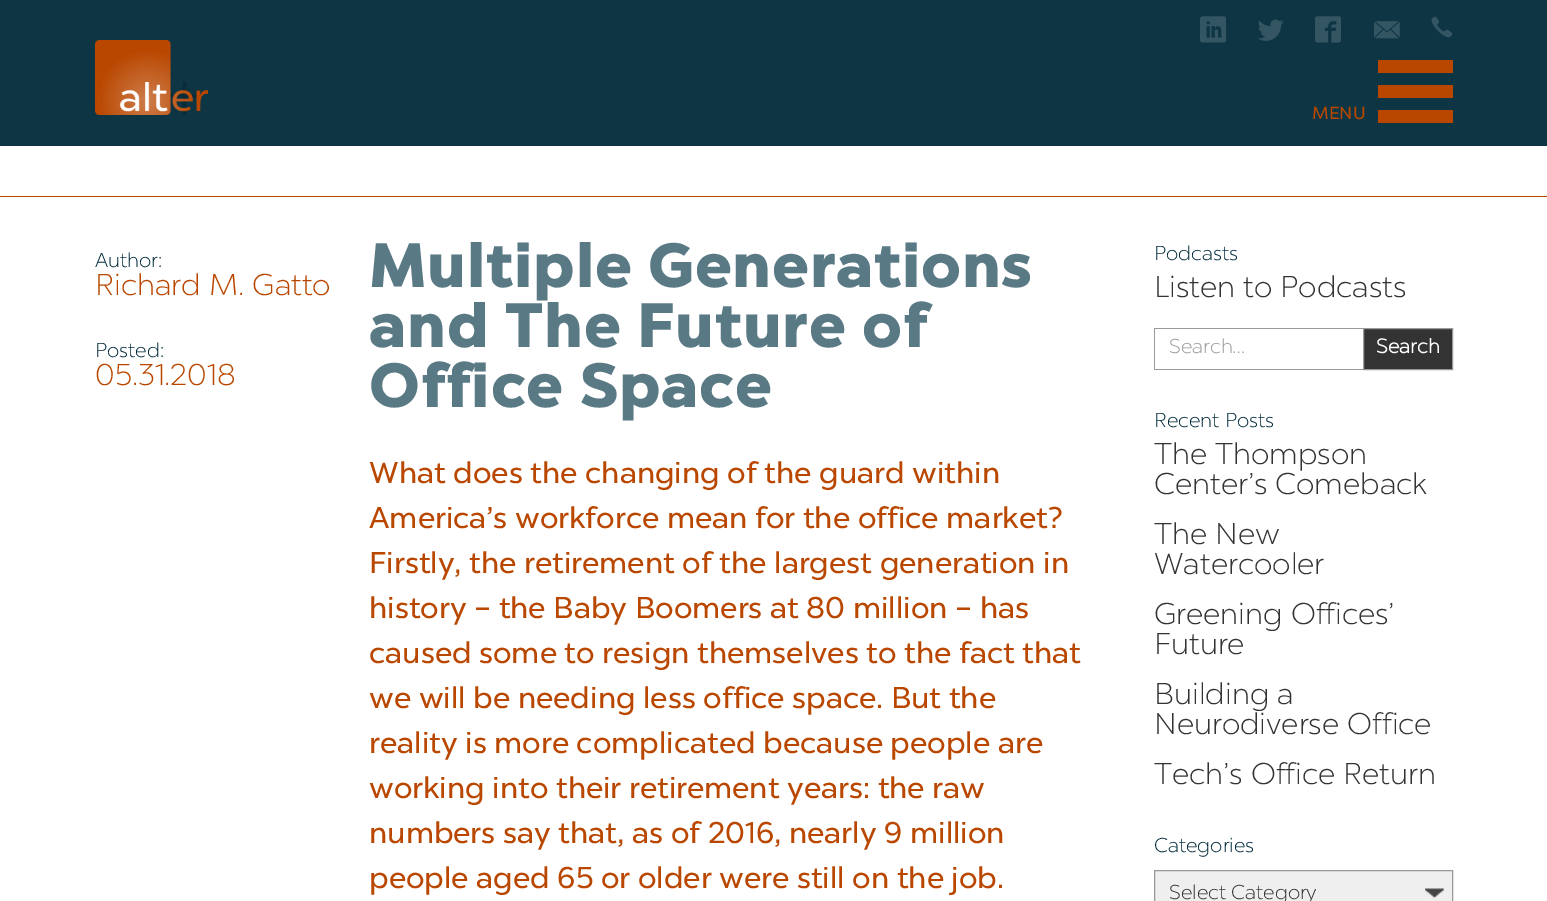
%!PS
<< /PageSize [1547 901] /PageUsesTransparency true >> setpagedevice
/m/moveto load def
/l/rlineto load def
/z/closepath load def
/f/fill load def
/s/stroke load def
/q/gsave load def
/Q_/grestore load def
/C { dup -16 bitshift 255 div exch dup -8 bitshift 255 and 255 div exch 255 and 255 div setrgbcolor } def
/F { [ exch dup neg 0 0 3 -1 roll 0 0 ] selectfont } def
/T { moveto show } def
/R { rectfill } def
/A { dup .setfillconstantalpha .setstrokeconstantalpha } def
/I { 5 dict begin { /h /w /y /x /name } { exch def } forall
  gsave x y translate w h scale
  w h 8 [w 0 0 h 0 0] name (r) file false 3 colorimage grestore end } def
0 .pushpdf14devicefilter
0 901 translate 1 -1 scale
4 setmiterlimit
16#FFFFFF C
0 0 1547 901 R
0.95 A
16#002A3A C
0 0 1547 146 R
1 A
(1.rgb) 95 40 113 75 I
(2.rgb) 1200 16 26 27 I
(3.rgb) 1258 19 26 22 I
(4.rgb) 1315 16 26 27 I
(5.rgb) 1374 21 26 18 I
(6.rgb) 1431 16 22 22 I
/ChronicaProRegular-Regular 17.5 F
16#B94700 C
(MENU) 1312 119 T
1378 110 75 13 R
1378 60 75 13 R
1378 85 75 13 R
0 196 1547 1 R
/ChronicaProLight-Regular 20 F
16#002A3A C
(Author:) 95 267 T
/ChronicaProLight-Regular 30 F
16#B94700 C
(Richard M. Gatto) 95 295 T
/ChronicaProLight-Regular 20 F
16#002A3A C
(Posted:) 95 357 T
/ChronicaProLight-Regular 30 F
16#B94700 C
(05.31.2018) 95 385 T
/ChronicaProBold-Bold 60 F
16#597985 C
369 287 m 2.5 0 (Multiple Generations) ashow
369 347 m 2.5 0 (and The Future of) ashow
369 407 m 2.5 0 (Office Space) ashow
/ChronicaProRegular-Regular 30 F
16#B94700 C
(What does the changing of the guard within) 369 483 T
(America’s workforce mean for the office market?) 369 528 T
(Firstly, the retirement of the largest generation in) 369 573 T
(history – the Baby Boomers at 80 million – has) 369 618 T
(caused some to resign themselves to the fact that) 369 663 T
(we will be needing less office space. But the) 369 708 T
(reality is more complicated because people are) 369 753 T
(working into their retirement years: the raw) 369 798 T
(numbers say that, as of 2016, nearly 9 million) 369 843 T
(people aged 65 or older were still on the job.) 369 888 T
/ChronicaProLight-Regular 20 F
16#002A3A C
(Podcasts) 1154 260 T
/ChronicaProLight-Regular 30 F
16#333333 C
(Listen to Podcasts) 1154 297 T
16#999999 C
1154 328 209 1 R
1154 369 209 1 R
1154 328 1 42 R
/ChronicaProLight-Regular 20 F
(Search…) 1169 353 T
16#333333 C
1363.5 328.5 m 89 0 l 0 41 l -89 0 l z q f Q_
16#999999 C
s
/ChronicaProLight-Bold 20 F
16#FFFFFF C
(Search) 1376 353 T
/ChronicaProLight-Regular 20 F
16#002A3A C
(Recent Posts) 1154 427 T
/ChronicaProLight-Regular 30 F
16#333333 C
(The Thompson) 1154 464 T
(Center’s Comeback) 1154 494 T
(The New) 1154 544 T
(Watercooler) 1154 574 T
(Greening Offices’) 1154 624 T
(Future) 1154 654 T
(Building a) 1154 704 T
(Neurodiverse Office) 1154 734 T
(Tech’s Office Return) 1154 784 T
/ChronicaProLight-Regular 20 F
16#002A3A C
(Categories) 1154 852 T
16#EFEFEF C
1155 871 297 30 R
(7.rgb) 1425 888 19 10 I
16#999999 C
1154.5 870.5 298 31 rectstroke
16#333333 C
(Select Category) 1169 899 T
.poppdf14devicefilter showpage
